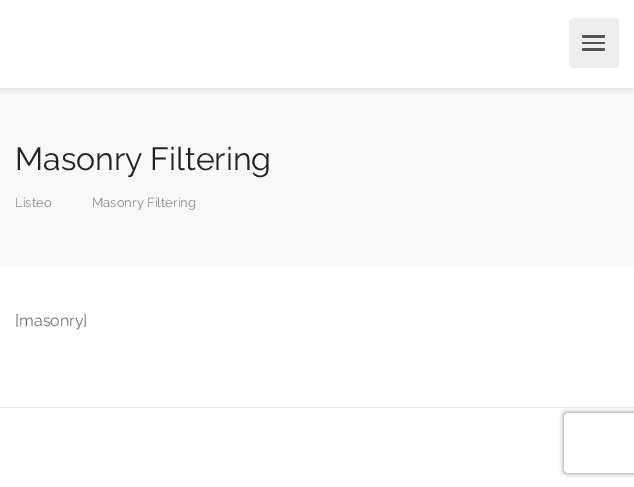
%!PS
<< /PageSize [634 487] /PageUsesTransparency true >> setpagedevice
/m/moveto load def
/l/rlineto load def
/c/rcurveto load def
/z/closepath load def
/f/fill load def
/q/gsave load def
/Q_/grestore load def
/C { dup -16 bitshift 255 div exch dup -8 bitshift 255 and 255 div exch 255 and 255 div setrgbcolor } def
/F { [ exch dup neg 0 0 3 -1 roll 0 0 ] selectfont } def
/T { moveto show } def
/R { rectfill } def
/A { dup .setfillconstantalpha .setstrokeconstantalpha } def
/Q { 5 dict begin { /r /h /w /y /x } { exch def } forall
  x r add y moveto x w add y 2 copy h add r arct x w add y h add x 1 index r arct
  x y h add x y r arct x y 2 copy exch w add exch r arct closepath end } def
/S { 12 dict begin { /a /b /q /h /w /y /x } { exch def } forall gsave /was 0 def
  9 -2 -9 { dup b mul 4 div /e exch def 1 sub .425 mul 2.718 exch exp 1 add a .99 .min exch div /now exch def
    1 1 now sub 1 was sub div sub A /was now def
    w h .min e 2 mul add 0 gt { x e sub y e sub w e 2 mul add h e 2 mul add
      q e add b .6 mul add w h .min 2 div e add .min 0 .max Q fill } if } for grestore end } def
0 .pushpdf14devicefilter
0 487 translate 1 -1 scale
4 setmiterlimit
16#FFFFFF C
0 0 634 487 R
16#F8F8F8 C
0 88 634 178 R
q
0 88 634 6 rectclip
16#000000 C
0 0 634 88 0 6 .12 S
Q_
16#EEEEEE C
569 18 50 50 4 Q f
16#555555 C
582 48 23 3 1.5 Q f
582 35 23 3 1.5 Q f
582 42 23 2 1 Q f
/Raleway-Regular 32 F
16#222222 C
(Masonry Filtering) 15 170 T
/Raleway-Regular 13 F
16#888888 C
(Listeo) 15 207 T
(Masonry Filtering) 92 207 T
/Raleway-Regular 16 F
16#707070 C
([masonry]) 15 326 T
16#E8E8E8 C
0 407 634 1 R
q
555 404 m 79 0 l 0 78 l -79 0 l z 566 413 m 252 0 l 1 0 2 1 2 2 c 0 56 l 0 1 -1 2 -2 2 c -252 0 l -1 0 -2 -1 -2 -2 c 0 -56 l 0 -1 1 -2 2 -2 c z eoclip newpath
16#808080 C
564 413 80 60 2 2.5 1 S
Q_
.poppdf14devicefilter showpage
